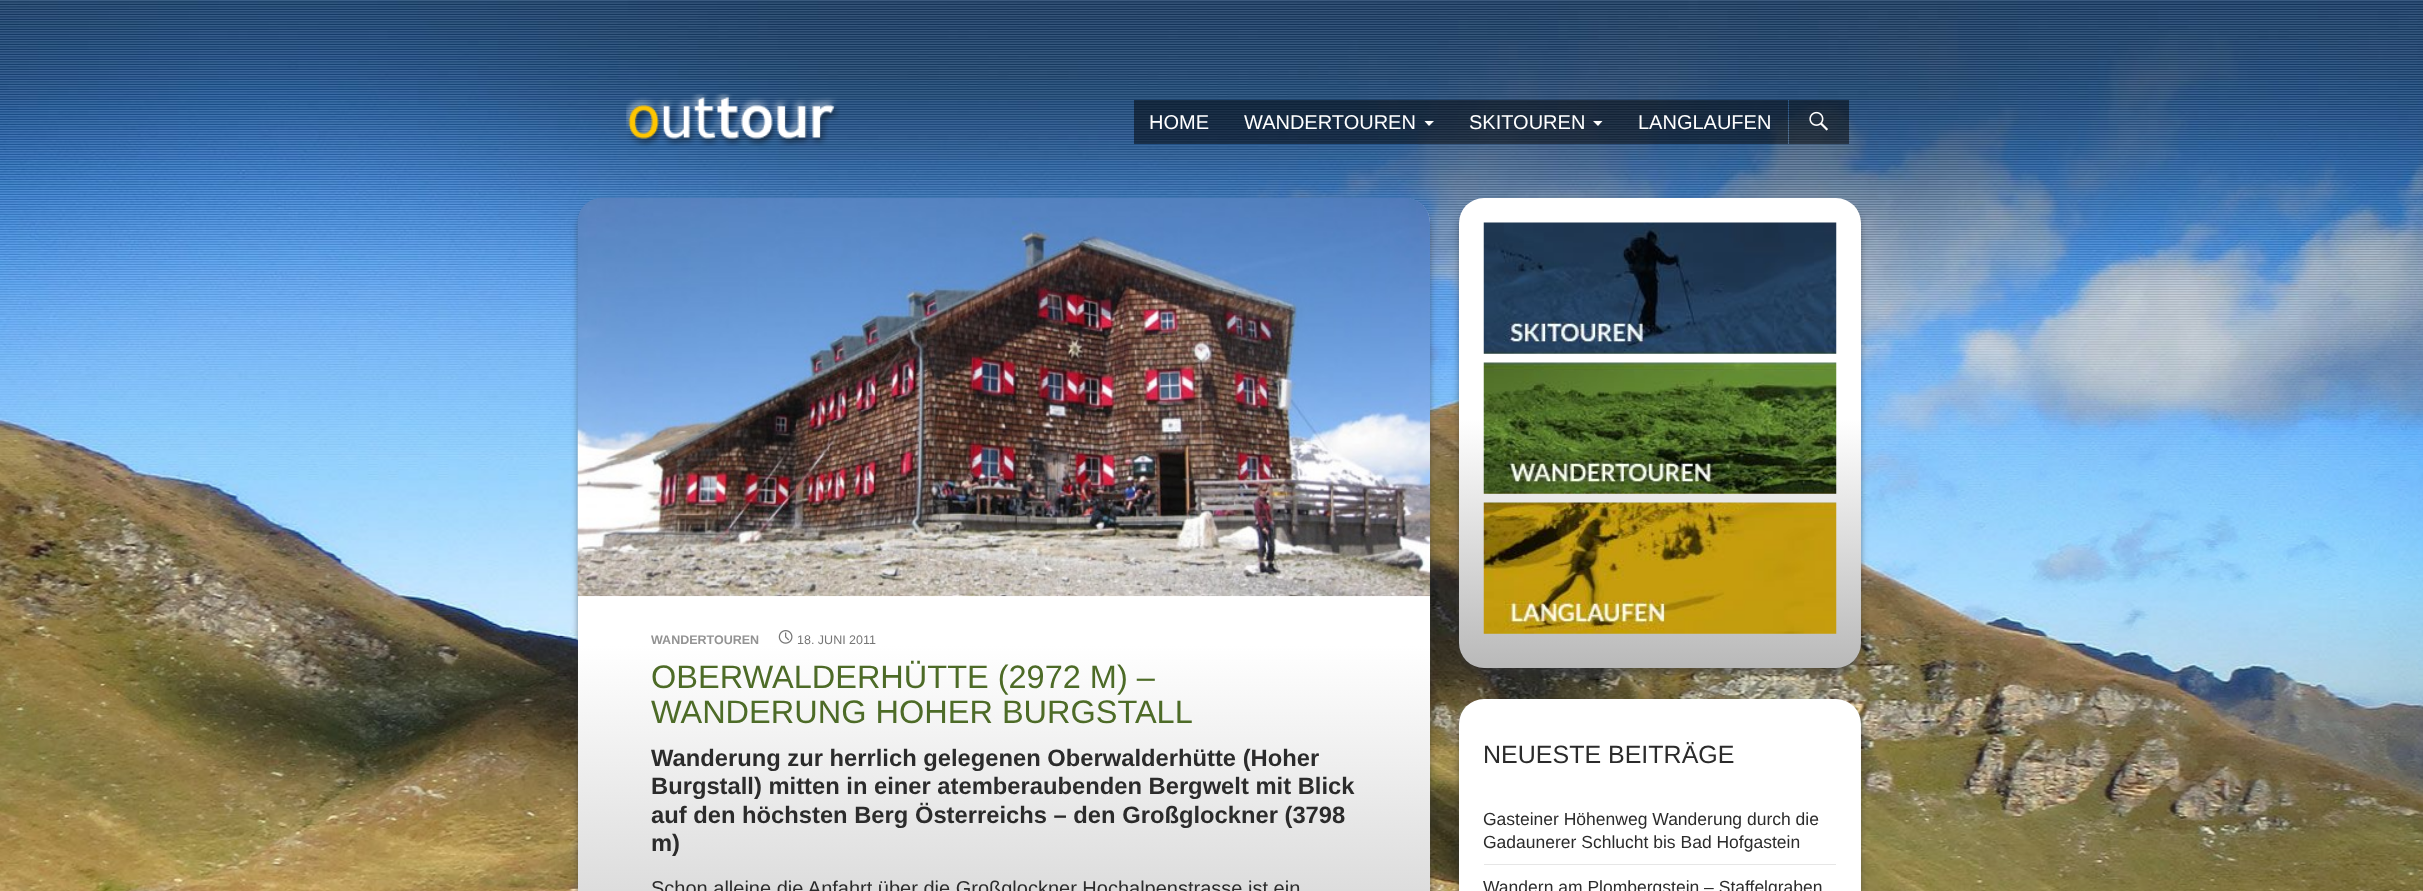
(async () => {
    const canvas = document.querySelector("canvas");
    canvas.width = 2423;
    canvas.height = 891;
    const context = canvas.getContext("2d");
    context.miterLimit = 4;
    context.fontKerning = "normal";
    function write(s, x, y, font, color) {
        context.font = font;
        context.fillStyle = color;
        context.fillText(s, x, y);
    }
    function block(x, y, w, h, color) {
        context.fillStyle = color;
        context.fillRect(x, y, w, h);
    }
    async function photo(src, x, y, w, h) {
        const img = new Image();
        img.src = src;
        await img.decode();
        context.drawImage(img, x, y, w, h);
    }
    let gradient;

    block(0, 0, 2423, 891, "rgb(255, 255, 255)");
    await photo("media/1.png", 0, 0, 2423, 891);
    await photo("media/2.png", 626, 93, 214, 53);
    block(1134, 100, 654, 44, "rgba(0, 0, 0, 0.5)");
    write("HOME", 1149, 129, "20px Liberation Sans", "rgb(255, 255, 255)");
    write("WANDERTOUREN", 1244, 129, "20px Liberation Sans", "rgb(255, 255, 255)");
    context.beginPath();
    context.moveTo(1424.5, 121);
    context.lineTo(1429, 126);
    context.lineTo(1434, 121);
    context.closePath();
    context.fill();
    write("SKITOUREN", 1469, 129, "20px Liberation Sans", "rgb(255, 255, 255)");
    context.beginPath();
    context.moveTo(1593, 121);
    context.lineTo(1598, 126);
    context.lineTo(1602.5, 121);
    context.closePath();
    context.fill();
    write("LANGLAUFEN", 1638, 129, "20px Liberation Sans", "rgb(255, 255, 255)");
    block(1789, 100, 60, 44, "rgba(0, 0, 0, 0.5)");
    await photo("media/3.png", 1809, 111, 19, 20);
    context.fillStyle = "rgba(50, 50, 50, 0.5)";
    context.filter = "blur(3px)";
    context.beginPath();
    context.roundRect(578, 204, 852, 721, 25);
    context.fill();
    context.filter = "none";
    gradient = context.createLinearGradient(1004, 197, 1004, 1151);
    gradient.addColorStop(0, "rgb(255, 255, 255)");
    gradient.addColorStop(0.47, "rgb(255, 255, 255)");
    gradient.addColorStop(1, "rgb(185, 185, 185)");
    context.fillStyle = gradient;
    context.beginPath();
    context.roundRect(578, 198, 852, 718, 25);
    context.fill();
    await photo("media/4.png", 577, 197, 853, 400);
    write("WANDERTOUREN", 651, 644, "bold 12.5px Liberation Sans", "rgb(147, 147, 147)");
    await photo("media/5.png", 778, 630, 15, 14);
    write("18. JUNI 2011", 797, 644, "12.5px Liberation Sans", "rgb(118, 118, 118)");
    write("OBERWALDERHÜTTE (2972 M) –", 651, 688, "32.5px Liberation Sans", "rgb(77, 107, 39)");
    write("WANDERUNG HOHER BURGSTALL", 651, 723, "32.5px Liberation Sans", "rgb(77, 107, 39)");
    write("Wanderung zur herrlich gelegenen Oberwalderhütte (Hoher", 651, 766, "bold 23.75px Liberation Sans", "rgb(43, 43, 43)");
    write("Burgstall) mitten in einer atemberaubenden Bergwelt mit Blick", 651, 794, "bold 23.75px Liberation Sans", "rgb(43, 43, 43)");
    write("auf den höchsten Berg Österreichs – den Großglockner (3798", 651, 823, "bold 23.75px Liberation Sans", "rgb(43, 43, 43)");
    write("m)", 651, 851, "bold 23.75px Liberation Sans", "rgb(43, 43, 43)");
    write("Schon alleine die Anfahrt über die Großglockner Hochalpenstrasse ist ein", 651, 895, "20px Liberation Sans", "rgb(43, 43, 43)");
    context.fillStyle = "rgba(50, 50, 50, 0.5)";
    context.filter = "blur(3px)";
    context.beginPath();
    context.roundRect(1459, 204, 402, 470, 25);
    context.fill();
    context.filter = "none";
    gradient = context.createLinearGradient(1660, 197, 1660, 668);
    gradient.addColorStop(0, "rgb(255, 255, 255)");
    gradient.addColorStop(0.47, "rgb(255, 255, 255)");
    gradient.addColorStop(1, "rgb(185, 185, 185)");
    context.fillStyle = gradient;
    context.beginPath();
    context.roundRect(1459, 198, 402, 470, 25);
    context.fill();
    await photo("media/6.png", 1483, 222, 354, 132);
    await photo("media/7.png", 1483, 362, 354, 132);
    await photo("media/8.png", 1483, 502, 354, 132);
    context.fillStyle = "rgba(50, 50, 50, 0.5)";
    context.filter = "blur(3px)";
    context.beginPath();
    context.roundRect(1459, 705, 402, 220, 25);
    context.fill();
    context.filter = "none";
    gradient = context.createLinearGradient(1660, 699, 1660, 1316);
    gradient.addColorStop(0, "rgb(255, 255, 255)");
    gradient.addColorStop(0.47, "rgb(255, 255, 255)");
    gradient.addColorStop(1, "rgb(185, 185, 185)");
    context.fillStyle = gradient;
    context.beginPath();
    context.roundRect(1459, 699, 402, 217, 25);
    context.fill();
    write("NEUESTE BEITRÄGE", 1483, 763, "25px Liberation Sans", "rgb(43, 43, 43)");
    write("Gasteiner Höhenweg Wanderung durch die", 1483, 825, "17.5px Liberation Sans", "rgb(43, 43, 43)");
    write("Gadaunerer Schlucht bis Bad Hofgastein", 1483, 848, "17.5px Liberation Sans", "rgb(43, 43, 43)");
    block(1484, 864, 352, 1, "rgb(230, 230, 230)");
    write("Wandern am Plombergstein – Staffelgraben", 1483, 893, "17.5px Liberation Sans", "rgb(43, 43, 43)");
})();
